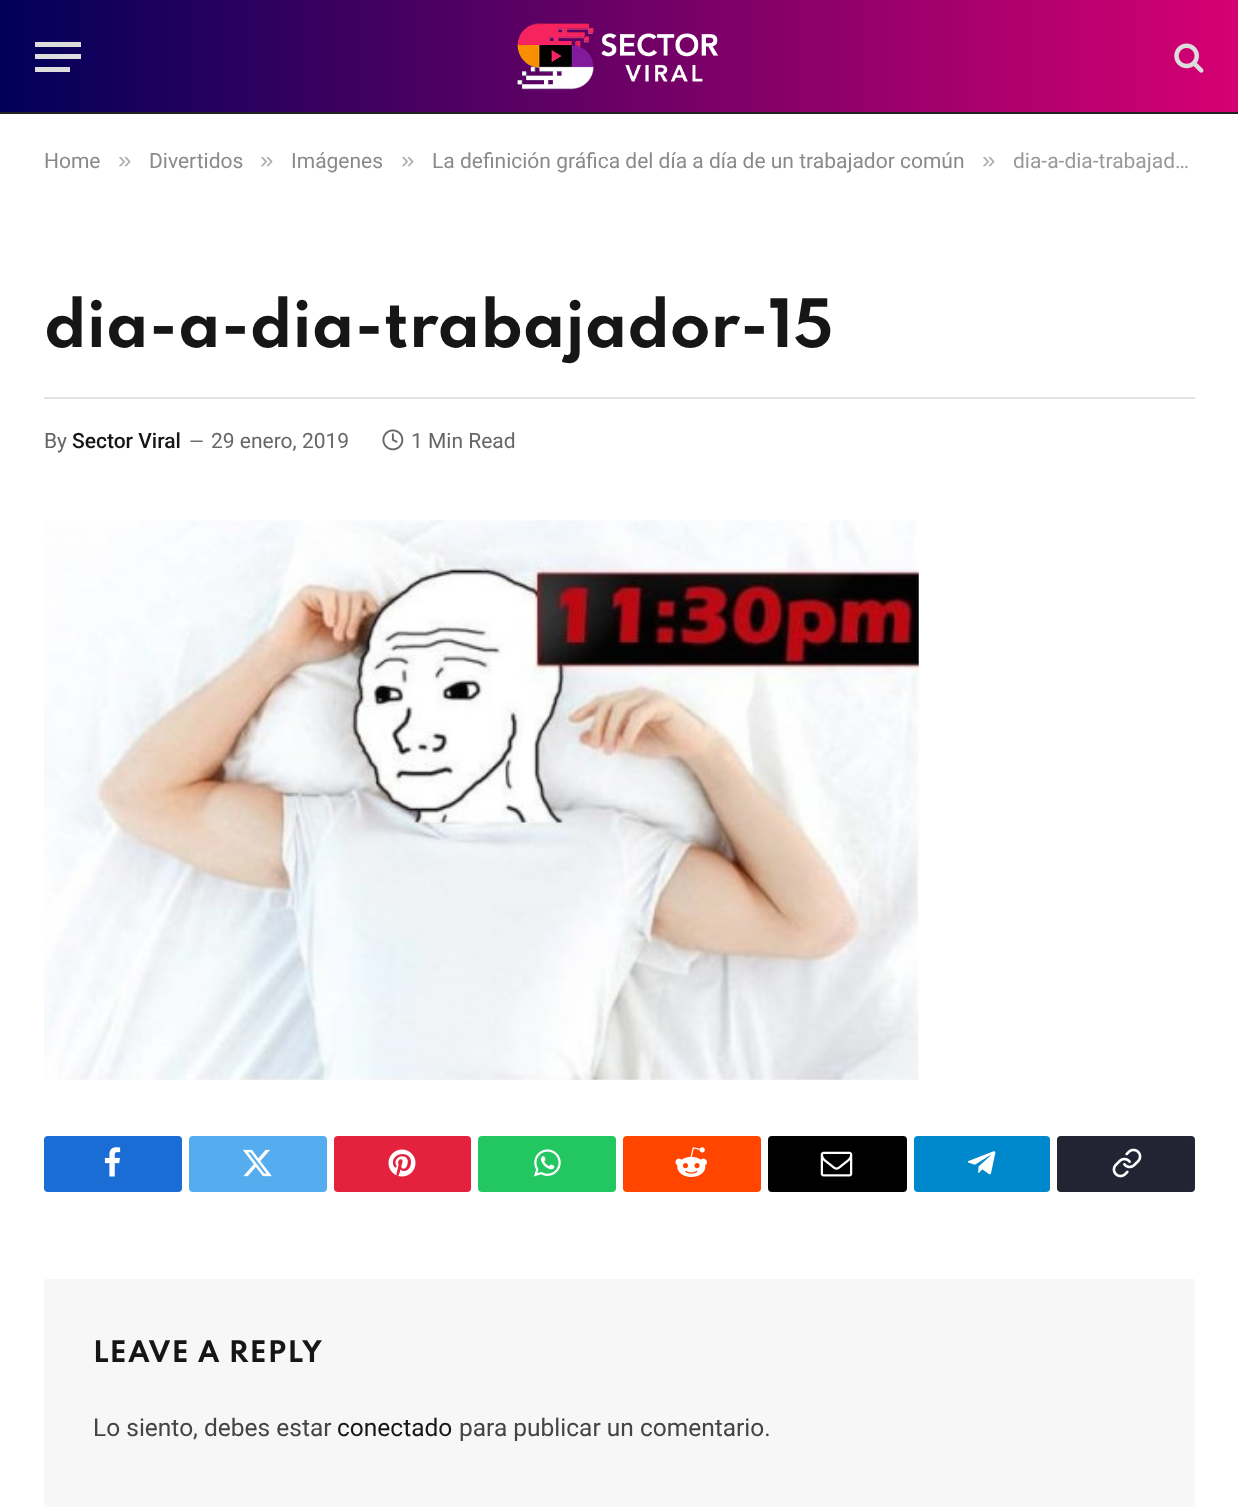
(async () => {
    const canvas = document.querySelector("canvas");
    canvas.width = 1238;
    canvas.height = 1507;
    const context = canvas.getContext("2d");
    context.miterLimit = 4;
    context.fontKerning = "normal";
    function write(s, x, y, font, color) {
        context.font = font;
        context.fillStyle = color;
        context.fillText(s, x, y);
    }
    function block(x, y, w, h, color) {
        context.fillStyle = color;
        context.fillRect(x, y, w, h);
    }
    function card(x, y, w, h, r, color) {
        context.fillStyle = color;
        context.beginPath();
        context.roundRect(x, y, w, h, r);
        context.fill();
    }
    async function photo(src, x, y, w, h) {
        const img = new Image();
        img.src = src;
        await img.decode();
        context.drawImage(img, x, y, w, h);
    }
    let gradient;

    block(0, 0, 1238, 1507, "rgb(255, 255, 255)");
    gradient = context.createLinearGradient(0, 56, 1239, 56);
    gradient.addColorStop(0, "rgb(0, 0, 89)");
    gradient.addColorStop(1, "rgb(214, 0, 114)");
    context.fillStyle = gradient;
    context.fillRect(0, 0, 1238, 112);
    block(0, 112, 1238, 2, "rgb(34, 34, 34)");
    block(35, 67, 35, 5, "rgb(221, 221, 221)");
    block(35, 42, 46, 5, "rgb(221, 221, 221)");
    block(35, 54, 46, 5, "rgb(221, 221, 221)");
    await photo("media/1.png", 517, 22, 202, 68);
    await photo("media/2.png", 1174, 43, 30, 30);
    write("Home", 44, 168, "21px Roboto", "rgb(138, 138, 138)");
    write("»", 118, 168, "24px Liberation Sans", "rgb(173, 173, 173)");
    write("Divertidos", 149, 168, "21px Roboto", "rgb(138, 138, 138)");
    write("»", 260, 168, "24px Liberation Sans", "rgb(173, 173, 173)");
    write("Imágenes", 291, 168, "21px Roboto", "rgb(138, 138, 138)");
    write("»", 401, 168, "24px Liberation Sans", "rgb(173, 173, 173)");
    write("La definición gráfica del día a día de un trabajador común", 432, 168, "21px Roboto", "rgb(138, 138, 138)");
    write("»", 982, 168, "24px Liberation Sans", "rgb(173, 173, 173)");
    write("dia-a-dia-trabajad…", 1013, 168, "21px Roboto", "rgb(153, 153, 153)");
    context.letterSpacing = "-0.3px";
    write("dia-a-dia-trabajador-15", 44, 347, "bold 59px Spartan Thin", "rgb(22, 22, 22)");
    block(44, 397, 1151, 2, "rgb(226, 226, 226)");
    context.letterSpacing = "0px";
    write("By", 44, 448, "21px Roboto", "rgb(102, 102, 102)");
    write("Sector Viral", 72, 448, "500 21px Roboto", "rgb(22, 22, 22)");
    write("—", 189, 448, "19px Roboto", "rgb(102, 102, 102)");
    write("29 enero, 2019", 211, 448, "21px Roboto", "rgb(102, 102, 102)");
    await photo("media/3.png", 382, 429, 22, 22);
    write("1 Min Read", 411, 448, "21px Roboto", "rgb(102, 102, 102)");
    await photo("media/4.png", 44, 520, 875, 560);
    card(44, 1136, 138, 56, 4, "rgb(26, 109, 212)");
    await photo("media/5.png", 104, 1147, 17, 30);
    card(189, 1136, 138, 56, 4, "rgb(85, 172, 239)");
    await photo("media/6.png", 243, 1149, 29, 28);
    card(334, 1136, 137, 56, 4, "rgb(228, 34, 62)");
    await photo("media/7.png", 388, 1149, 28, 28);
    card(478, 1136, 138, 56, 4, "rgb(35, 199, 97)");
    await photo("media/8.png", 533, 1149, 28, 28);
    card(623, 1136, 138, 56, 4, "rgb(255, 69, 0)");
    await photo("media/9.png", 675, 1147, 32, 30);
    card(768, 1136, 139, 56, 4, "rgb(0, 0, 0)");
    await photo("media/10.png", 820, 1151, 33, 26);
    card(914, 1136, 136, 56, 4, "rgb(0, 136, 204)");
    await photo("media/11.png", 967, 1151, 29, 24);
    card(1057, 1136, 138, 56, 4, "rgb(34, 36, 51)");
    await photo("media/12.png", 1112, 1148, 30, 30);
    block(44, 1279, 1151, 228, "rgb(247, 247, 247)");
    context.letterSpacing = "1px";
    write("LEAVE A REPLY", 93, 1362, "bold 26.25px Spartan Thin", "rgb(22, 22, 22)");
    context.letterSpacing = "0px";
    write("Lo siento, debes estar", 93, 1436, "24.5px Roboto", "rgb(68, 68, 68)");
    write("conectado", 337, 1436, "24.5px Roboto", "rgb(22, 22, 22)");
    write("para publicar un comentario.", 459, 1436, "24.5px Roboto", "rgb(68, 68, 68)");
})();
